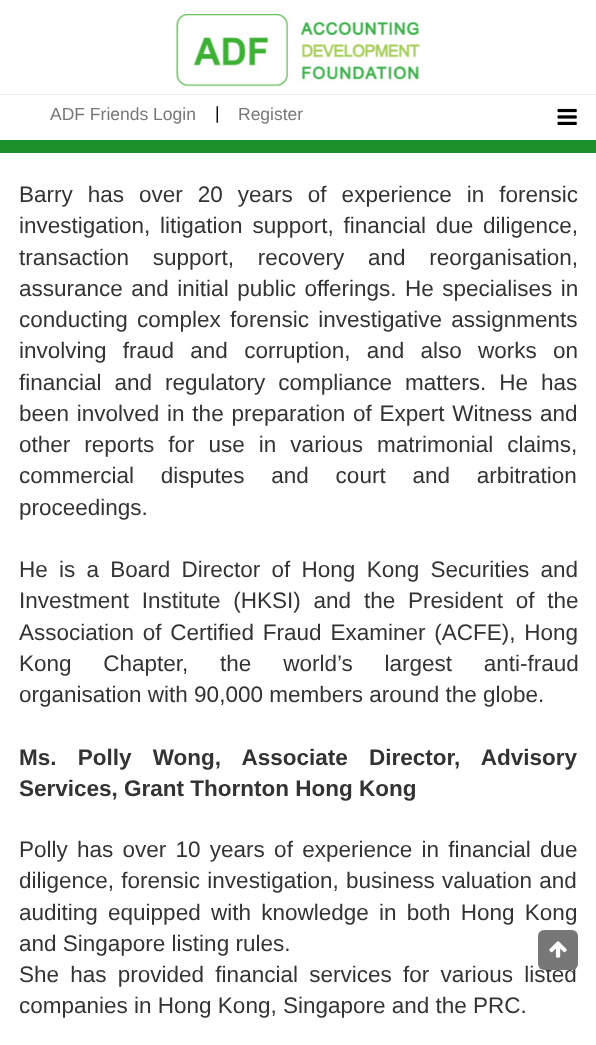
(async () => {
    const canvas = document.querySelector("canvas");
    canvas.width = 596;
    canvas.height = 1045;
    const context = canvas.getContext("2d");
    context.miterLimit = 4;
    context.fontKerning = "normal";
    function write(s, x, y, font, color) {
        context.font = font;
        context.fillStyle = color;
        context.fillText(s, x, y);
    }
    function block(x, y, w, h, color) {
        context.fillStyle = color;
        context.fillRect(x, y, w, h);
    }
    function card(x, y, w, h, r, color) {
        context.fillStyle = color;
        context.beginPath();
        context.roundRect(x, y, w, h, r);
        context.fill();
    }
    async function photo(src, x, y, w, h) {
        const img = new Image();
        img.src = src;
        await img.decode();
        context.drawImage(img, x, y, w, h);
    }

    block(0, 0, 596, 1045, "rgb(255, 255, 255)");
    block(0, 140, 596, 13, "rgb(28, 144, 42)");
    await photo("media/1.png", 176, 14, 244, 73);
    block(0, 94, 596, 1, "rgb(238, 238, 238)");
    write("ADF Friends Login", 50, 120, "17.5px Liberation Sans", "rgb(119, 119, 119)");
    write("|", 215, 119, "17.5px Liberation Sans", "rgb(0, 0, 0)");
    write("Register", 238, 120, "17.5px Liberation Sans", "rgb(119, 119, 119)");
    await photo("media/2.png", 557, 108, 20, 17);
    context.wordSpacing = "8.75px";
    write("Barry has over 20 years of experience in forensic", 19, 202, "22.5px Liberation Sans", "rgb(51, 51, 51)");
    context.wordSpacing = "3.5px";
    write("investigation, litigation support, financial due diligence,", 19, 233, "22.5px Liberation Sans", "rgb(51, 51, 51)");
    context.wordSpacing = "17.5px";
    write("transaction support, recovery and reorganisation,", 19, 265, "22.5px Liberation Sans", "rgb(51, 51, 51)");
    context.wordSpacing = "2.25px";
    write("assurance and initial public offerings. He specialises in", 19, 296, "22.5px Liberation Sans", "rgb(51, 51, 51)");
    context.wordSpacing = "3px";
    write("conducting complex forensic investigative assignments", 19, 327, "22.5px Liberation Sans", "rgb(51, 51, 51)");
    context.wordSpacing = "10px";
    write("involving fraud and corruption, and also works on", 19, 358, "22.5px Liberation Sans", "rgb(51, 51, 51)");
    context.wordSpacing = "6.75px";
    write("financial and regulatory compliance matters. He has", 19, 390, "22.5px Liberation Sans", "rgb(51, 51, 51)");
    context.wordSpacing = "1.5px";
    write("been involved in the preparation of Expert Witness and", 19, 421, "22.5px Liberation Sans", "rgb(51, 51, 51)");
    context.wordSpacing = "7.75px";
    write("other reports for use in various matrimonial claims,", 19, 452, "22.5px Liberation Sans", "rgb(51, 51, 51)");
    context.wordSpacing = "20.5px";
    write("commercial disputes and court and arbitration", 19, 483, "22.5px Liberation Sans", "rgb(51, 51, 51)");
    context.wordSpacing = "0px";
    write("proceedings.", 19, 515, "22.5px Liberation Sans", "rgb(51, 51, 51)");
    context.wordSpacing = "5px";
    write("He is a Board Director of Hong Kong Securities and", 19, 577, "22.5px Liberation Sans", "rgb(51, 51, 51)");
    context.wordSpacing = "6.5px";
    write("Investment Institute (HKSI) and the President of the", 19, 608, "22.5px Liberation Sans", "rgb(51, 51, 51)");
    context.wordSpacing = "2.5px";
    write("Association of Certified Fraud Examiner (ACFE), Hong", 19, 640, "22.5px Liberation Sans", "rgb(51, 51, 51)");
    context.wordSpacing = "25.5px";
    write("Kong Chapter, the world’s largest anti-fraud", 19, 671, "22.5px Liberation Sans", "rgb(51, 51, 51)");
    context.wordSpacing = "0px";
    write("organisation with 90,000 members around the globe.", 19, 702, "22.5px Liberation Sans", "rgb(51, 51, 51)");
    context.wordSpacing = "15px";
    write("Ms. Polly Wong, Associate Director, Advisory", 19, 765, "bold 22.5px Liberation Sans", "rgb(51, 51, 51)");
    context.wordSpacing = "0px";
    write("Services, Grant Thornton Hong Kong", 19, 796, "bold 22.5px Liberation Sans", "rgb(51, 51, 51)");
    context.wordSpacing = "3px";
    write("Polly has over 10 years of experience in financial due", 19, 857, "22.5px Liberation Sans", "rgb(51, 51, 51)");
    context.wordSpacing = "1px";
    write("diligence, forensic investigation, business valuation and", 19, 888, "22.5px Liberation Sans", "rgb(51, 51, 51)");
    context.wordSpacing = "4px";
    write("auditing equipped with knowledge in both Hong Kong", 19, 920, "22.5px Liberation Sans", "rgb(51, 51, 51)");
    context.wordSpacing = "0px";
    write("and Singapore listing rules.", 19, 951, "22.5px Liberation Sans", "rgb(51, 51, 51)");
    context.wordSpacing = "5px";
    write("She has provided financial services for various listed", 19, 982, "22.5px Liberation Sans", "rgb(51, 51, 51)");
    context.wordSpacing = "0px";
    write("companies in Hong Kong, Singapore and the PRC.", 19, 1013, "22.5px Liberation Sans", "rgb(51, 51, 51)");
    card(538, 930, 40, 40, 6, "rgb(119, 119, 119)");
    await photo("media/3.png", 549, 941, 18, 17);
})();
